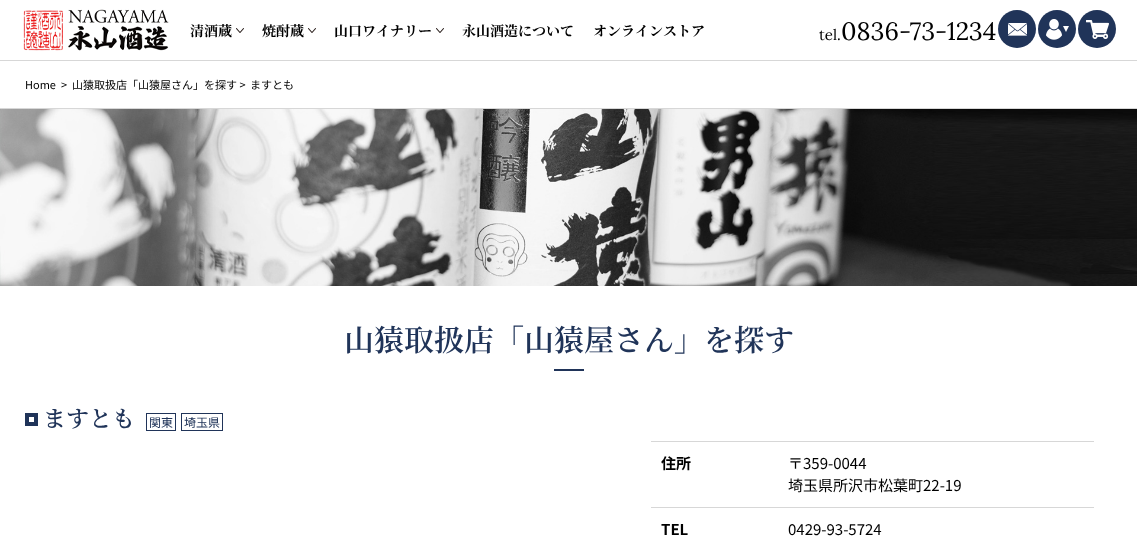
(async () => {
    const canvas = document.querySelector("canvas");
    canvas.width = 1137;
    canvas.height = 546;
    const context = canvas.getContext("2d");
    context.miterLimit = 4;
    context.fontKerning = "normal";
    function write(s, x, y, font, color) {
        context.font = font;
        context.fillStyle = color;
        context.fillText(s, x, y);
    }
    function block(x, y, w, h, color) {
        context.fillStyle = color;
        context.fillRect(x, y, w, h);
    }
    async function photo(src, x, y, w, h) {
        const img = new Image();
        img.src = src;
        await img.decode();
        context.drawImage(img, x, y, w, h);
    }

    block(0, 0, 1137, 546, "rgb(255, 255, 255)");
    await photo("media/1.png", 23, 9, 146, 42);
    write("清酒蔵", 190, 36, "bold 14px Noto Serif JP", "rgb(0, 0, 0)");
    await photo("media/2.png", 236, 28, 8, 5);
    write("焼酎蔵", 262, 36, "bold 14px Noto Serif JP", "rgb(0, 0, 0)");
    await photo("media/2.png", 308, 28, 8, 5);
    write("山口ワイナリー", 334, 36, "bold 14px Noto Serif JP", "rgb(0, 0, 0)");
    await photo("media/2.png", 436, 28, 8, 5);
    write("永山酒造について", 462, 36, "bold 14px Noto Serif JP", "rgb(0, 0, 0)");
    write("オンラインストア", 593, 36, "bold 14px Noto Serif JP", "rgb(0, 0, 0)");
    write("tel.", 819, 40, "15px Lora", "rgb(0, 0, 0)");
    write("0836-73-1234", 841, 40, "25px Lora", "rgb(0, 0, 0)");
    context.fillStyle = "rgb(32, 52, 89)";
    context.beginPath();
    context.arc(1017, 29, 19, 0, Math.PI * 2);
    context.fill();
    await photo("media/3.png", 1008, 23, 19, 13);
    context.beginPath();
    context.arc(1057, 29, 19, 0, Math.PI * 2);
    context.fill();
    await photo("media/4.png", 1046, 19, 23, 21);
    context.beginPath();
    context.arc(1097, 29, 19, 0, Math.PI * 2);
    context.fill();
    await photo("media/5.png", 1086, 20, 23, 19);
    block(0, 60, 1137, 1, "rgb(215, 215, 215)");
    block(0, 108, 1137, 1, "rgb(215, 215, 215)");
    write("Home", 25, 89, "11px Noto Sans JP", "rgb(0, 0, 0)");
    write(">", 61, 89, "11px Noto Sans JP", "rgb(0, 0, 0)");
    write("山猿取扱店「山猿屋さん」を探す >", 72, 89, "11px Noto Sans JP", "rgb(0, 0, 0)");
    write("ますとも", 250, 89, "11px Noto Sans JP", "rgb(0, 0, 0)");
    await photo("media/6.png", 0, 109, 1137, 177);
    write("山猿取扱店「山猿屋さん」を探す", 344, 351, "600 30px Noto Serif JP", "rgb(32, 52, 89)");
    block(554, 369, 30, 2, "rgb(32, 52, 89)");
    context.strokeStyle = "rgb(32, 52, 89)";
    context.lineWidth = 4;
    context.strokeRect(27, 415, 9, 9);
    write("ますとも", 43, 427, "600 23px Noto Serif JP", "rgb(32, 52, 89)");
    context.lineWidth = 1;
    context.strokeRect(146.5, 413.5, 29, 17);
    write("関東", 149, 427, "12px Noto Sans JP", "rgb(32, 52, 89)");
    context.strokeRect(181.5, 413.5, 41, 17);
    write("埼玉県", 184, 427, "12px Noto Sans JP", "rgb(32, 52, 89)");
    block(651, 441, 443, 1, "rgb(215, 215, 215)");
    block(651, 507, 443, 1, "rgb(215, 215, 215)");
    write("住所", 661, 469, "bold 15px Noto Sans JP", "rgb(0, 0, 0)");
    write("〒359-0044", 788, 469, "15px Noto Sans JP", "rgb(0, 0, 0)");
    write("埼玉県所沢市松葉町22-19", 788, 491, "15px Noto Sans JP", "rgb(0, 0, 0)");
    write("TEL", 661, 535, "bold 15px Noto Sans JP", "rgb(0, 0, 0)");
    write("0429-93-5724", 788, 535, "15px Noto Sans JP", "rgb(0, 0, 0)");
})();
